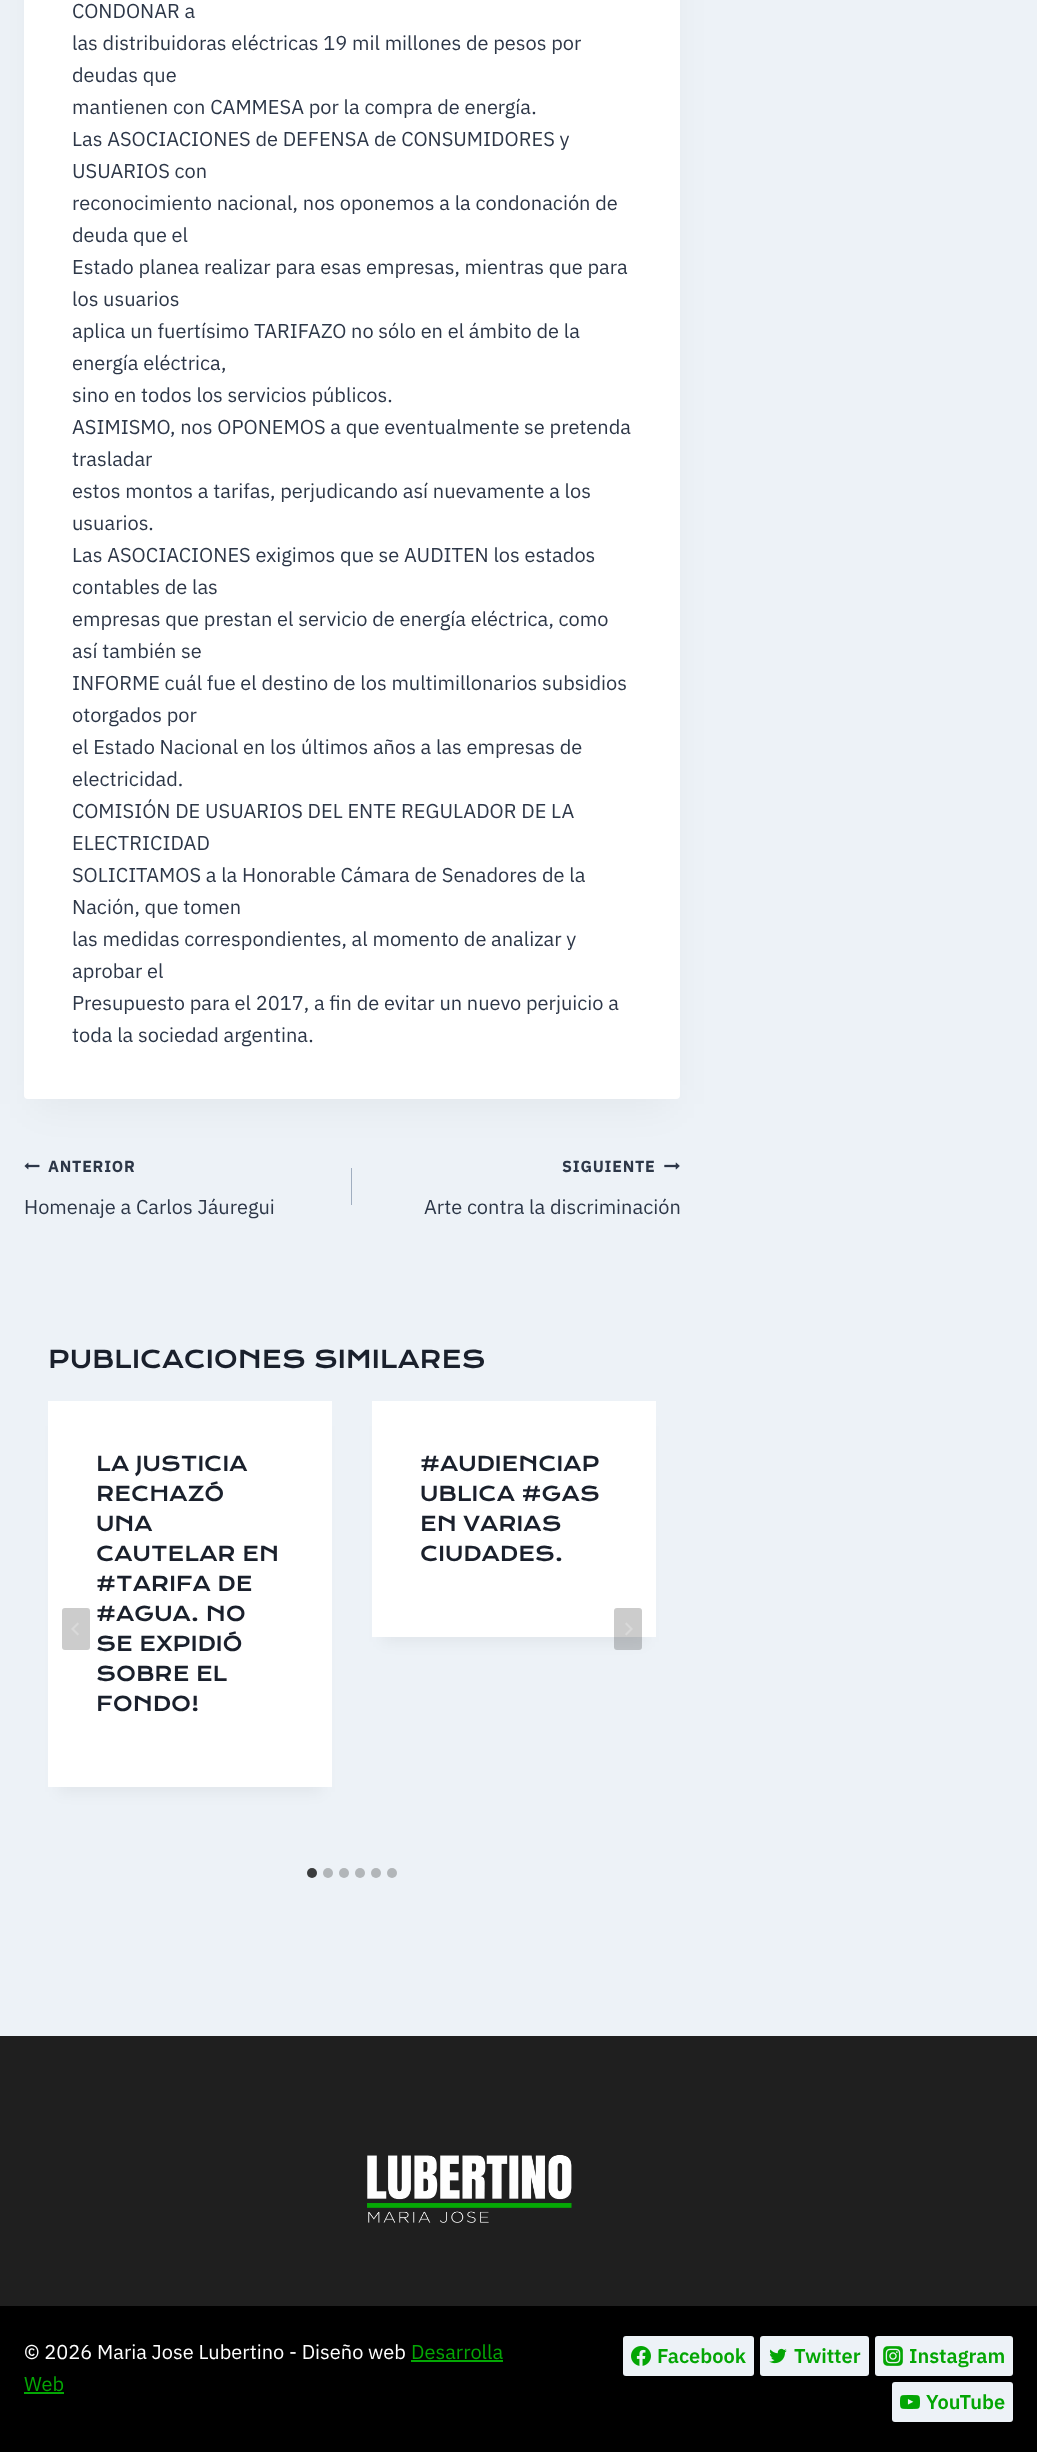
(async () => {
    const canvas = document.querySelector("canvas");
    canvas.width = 1037;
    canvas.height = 2452;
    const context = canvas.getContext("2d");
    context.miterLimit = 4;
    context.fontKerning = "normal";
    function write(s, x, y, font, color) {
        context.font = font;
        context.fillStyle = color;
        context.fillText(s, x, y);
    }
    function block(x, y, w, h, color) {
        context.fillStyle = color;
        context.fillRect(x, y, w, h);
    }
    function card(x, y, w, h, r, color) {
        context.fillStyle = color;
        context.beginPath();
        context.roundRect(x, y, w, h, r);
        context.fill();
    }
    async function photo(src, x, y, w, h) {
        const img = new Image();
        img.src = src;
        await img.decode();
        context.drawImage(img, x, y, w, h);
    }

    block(0, 0, 1037, 2452, "rgb(237, 242, 247)");
    context.fillStyle = "rgba(0, 0, 0, 0.05)";
    context.filter = "blur(20px)";
    context.beginPath();
    context.rect(34, -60, 636, 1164);
    context.fill();
    context.filter = "none";
    card(24, -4, 656, 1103, 4, "rgb(255, 255, 255)");
    write("CONDONAR a", 72, 18, "20px IBM Plex Sans", "rgb(45, 55, 72)");
    write("las distribuidoras eléctricas 19 mil millones de pesos por", 72, 50, "20px IBM Plex Sans", "rgb(45, 55, 72)");
    write("deudas que", 72, 82, "20px IBM Plex Sans", "rgb(45, 55, 72)");
    write("mantienen con CAMMESA por la compra de energía.", 72, 114, "20px IBM Plex Sans", "rgb(45, 55, 72)");
    write("Las ASOCIACIONES de DEFENSA de CONSUMIDORES y", 72, 146, "20px IBM Plex Sans", "rgb(45, 55, 72)");
    write("USUARIOS con", 72, 178, "20px IBM Plex Sans", "rgb(45, 55, 72)");
    write("reconocimiento nacional, nos oponemos a la condonación de", 72, 210, "20px IBM Plex Sans", "rgb(45, 55, 72)");
    write("deuda que el", 72, 242, "20px IBM Plex Sans", "rgb(45, 55, 72)");
    write("Estado planea realizar para esas empresas, mientras que para", 72, 274, "20px IBM Plex Sans", "rgb(45, 55, 72)");
    write("los usuarios", 72, 306, "20px IBM Plex Sans", "rgb(45, 55, 72)");
    write("aplica un fuertísimo TARIFAZO no sólo en el ámbito de la", 72, 338, "20px IBM Plex Sans", "rgb(45, 55, 72)");
    write("energía eléctrica,", 72, 370, "20px IBM Plex Sans", "rgb(45, 55, 72)");
    write("sino en todos los servicios públicos.", 72, 402, "20px IBM Plex Sans", "rgb(45, 55, 72)");
    write("ASIMISMO, nos OPONEMOS a que eventualmente se pretenda", 72, 434, "20px IBM Plex Sans", "rgb(45, 55, 72)");
    write("trasladar", 72, 466, "20px IBM Plex Sans", "rgb(45, 55, 72)");
    write("estos montos a tarifas, perjudicando así nuevamente a los", 72, 498, "20px IBM Plex Sans", "rgb(45, 55, 72)");
    write("usuarios.", 72, 530, "20px IBM Plex Sans", "rgb(45, 55, 72)");
    write("Las ASOCIACIONES exigimos que se AUDITEN los estados", 72, 562, "20px IBM Plex Sans", "rgb(45, 55, 72)");
    write("contables de las", 72, 594, "20px IBM Plex Sans", "rgb(45, 55, 72)");
    write("empresas que prestan el servicio de energía eléctrica, como", 72, 626, "20px IBM Plex Sans", "rgb(45, 55, 72)");
    write("así también se", 72, 658, "20px IBM Plex Sans", "rgb(45, 55, 72)");
    write("INFORME cuál fue el destino de los multimillonarios subsidios", 72, 690, "20px IBM Plex Sans", "rgb(45, 55, 72)");
    write("otorgados por", 72, 722, "20px IBM Plex Sans", "rgb(45, 55, 72)");
    write("el Estado Nacional en los últimos años a las empresas de", 72, 754, "20px IBM Plex Sans", "rgb(45, 55, 72)");
    write("electricidad.", 72, 786, "20px IBM Plex Sans", "rgb(45, 55, 72)");
    write("COMISIÓN DE USUARIOS DEL ENTE REGULADOR DE LA", 72, 818, "20px IBM Plex Sans", "rgb(45, 55, 72)");
    write("ELECTRICIDAD", 72, 850, "20px IBM Plex Sans", "rgb(45, 55, 72)");
    write("SOLICITAMOS a la Honorable Cámara de Senadores de la", 72, 882, "20px IBM Plex Sans", "rgb(45, 55, 72)");
    write("Nación, que tomen", 72, 914, "20px IBM Plex Sans", "rgb(45, 55, 72)");
    write("las medidas correspondientes, al momento de analizar y", 72, 946, "20px IBM Plex Sans", "rgb(45, 55, 72)");
    write("aprobar el", 72, 978, "20px IBM Plex Sans", "rgb(45, 55, 72)");
    write("Presupuesto para el 2017, a fin de evitar un nuevo perjuicio a", 72, 1010, "20px IBM Plex Sans", "rgb(45, 55, 72)");
    write("toda la sociedad argentina.", 72, 1042, "20px IBM Plex Sans", "rgb(45, 55, 72)");
    await photo("media/1.png", 24, 1162, 16, 8);
    context.letterSpacing = "0.75px";
    write("ANTERIOR", 48, 1172, "bold 16px IBM Plex Sans", "rgb(45, 55, 72)");
    context.letterSpacing = "0px";
    write("Homenaje a Carlos Jáuregui", 24, 1214, "20px IBM Plex Sans", "rgb(45, 55, 72)");
    block(351, 1168, 1, 37, "rgb(160, 174, 192)");
    context.letterSpacing = "0.75px";
    write("SIGUIENTE", 562, 1172, "bold 16px IBM Plex Sans", "rgb(45, 55, 72)");
    await photo("media/2.png", 664, 1162, 16, 8);
    context.letterSpacing = "0px";
    write("Arte contra la discriminación", 424, 1214, "20px IBM Plex Sans", "rgb(45, 55, 72)");
    write("PUBLICACIONES SIMILARES", 48, 1368, "24px Krona One", "rgb(26, 32, 44)");
    context.fillStyle = "rgba(0, 0, 0, 0.05)";
    context.filter = "blur(7.5px)";
    context.beginPath();
    context.rect(58, 1426, 264, 366);
    context.fill();
    context.filter = "none";
    block(48, 1401, 284, 386, "rgb(255, 255, 255)");
    write("LA JUSTICIA", 96, 1471, "20px Krona One", "rgb(26, 32, 44)");
    write("RECHAZÓ", 96, 1501, "20px Krona One", "rgb(26, 32, 44)");
    write("UNA", 96, 1531, "20px Krona One", "rgb(26, 32, 44)");
    write("CAUTELAR EN", 96, 1561, "20px Krona One", "rgb(26, 32, 44)");
    write("#TARIFA DE", 96, 1591, "20px Krona One", "rgb(26, 32, 44)");
    write("#AGUA. NO", 96, 1621, "20px Krona One", "rgb(26, 32, 44)");
    write("SE EXPIDIÓ", 96, 1651, "20px Krona One", "rgb(26, 32, 44)");
    write("SOBRE EL", 96, 1681, "20px Krona One", "rgb(26, 32, 44)");
    write("FONDO!", 96, 1711, "20px Krona One", "rgb(26, 32, 44)");
    context.fillStyle = "rgba(0, 0, 0, 0.05)";
    context.filter = "blur(7.5px)";
    context.beginPath();
    context.rect(382, 1426, 264, 216);
    context.fill();
    context.filter = "none";
    block(372, 1401, 284, 236, "rgb(255, 255, 255)");
    write("#AUDIENCIAP", 420, 1471, "20px Krona One", "rgb(26, 32, 44)");
    write("UBLICA #GAS", 420, 1501, "20px Krona One", "rgb(26, 32, 44)");
    write("EN VARIAS", 420, 1531, "20px Krona One", "rgb(26, 32, 44)");
    write("CIUDADES.", 420, 1561, "20px Krona One", "rgb(26, 32, 44)");
    card(62, 1608, 28, 42, 3, "rgb(204, 204, 204)");
    await photo("media/3.png", 71, 1622, 8, 14);
    card(614, 1608, 28, 42, 3, "rgba(0, 0, 0, 0.2)");
    await photo("media/4.png", 625, 1622, 8, 14);
    context.fillStyle = "rgb(59, 61, 62)";
    context.beginPath();
    context.arc(312, 1873, 5, 0, Math.PI * 2);
    context.fill();
    context.fillStyle = "rgb(178, 182, 185)";
    context.beginPath();
    context.arc(328, 1873, 5, 0, Math.PI * 2);
    context.fill();
    context.beginPath();
    context.arc(344, 1873, 5, 0, Math.PI * 2);
    context.fill();
    context.beginPath();
    context.arc(360, 1873, 5, 0, Math.PI * 2);
    context.fill();
    context.beginPath();
    context.arc(376, 1873, 5, 0, Math.PI * 2);
    context.fill();
    context.beginPath();
    context.arc(392, 1873, 5, 0, Math.PI * 2);
    context.fill();
    block(0, 2036, 1037, 270, "rgb(31, 31, 31)");
    await photo("media/5.png", 367, 2154, 205, 69);
    block(0, 2306, 1037, 146, "rgb(0, 0, 0)");
    write("© 2026 Maria Jose Lubertino - Diseño web", 24, 2359, "20px IBM Plex Sans", "rgb(255, 255, 255)");
    write("Desarrolla", 411, 2359, "20px IBM Plex Sans", "rgb(4, 166, 4)");
    block(411, 2360, 92, 2, "rgb(4, 166, 4)");
    write("Web", 24, 2391, "20px IBM Plex Sans", "rgb(4, 166, 4)");
    block(24, 2392, 40, 2, "rgb(4, 166, 4)");
    card(623, 2336, 131, 40, 3, "rgb(237, 242, 247)");
    await photo("media/6.png", 631, 2346, 20, 20);
    write("Facebook", 657, 2363, "600 20px IBM Plex Sans", "rgb(4, 166, 4)");
    card(760, 2336, 109, 40, 3, "rgb(237, 242, 247)");
    await photo("media/7.png", 769, 2348, 18, 16);
    write("Twitter", 794, 2363, "600 20px IBM Plex Sans", "rgb(4, 166, 4)");
    card(875, 2336, 138, 40, 3, "rgb(237, 242, 247)");
    await photo("media/8.png", 883, 2346, 20, 20);
    write("Instagram", 909, 2363, "600 20px IBM Plex Sans", "rgb(4, 166, 4)");
    card(892, 2382, 121, 40, 3, "rgb(237, 242, 247)");
    await photo("media/9.png", 900, 2395, 20, 14);
    write("YouTube", 926, 2409, "600 20px IBM Plex Sans", "rgb(4, 166, 4)");
})();
